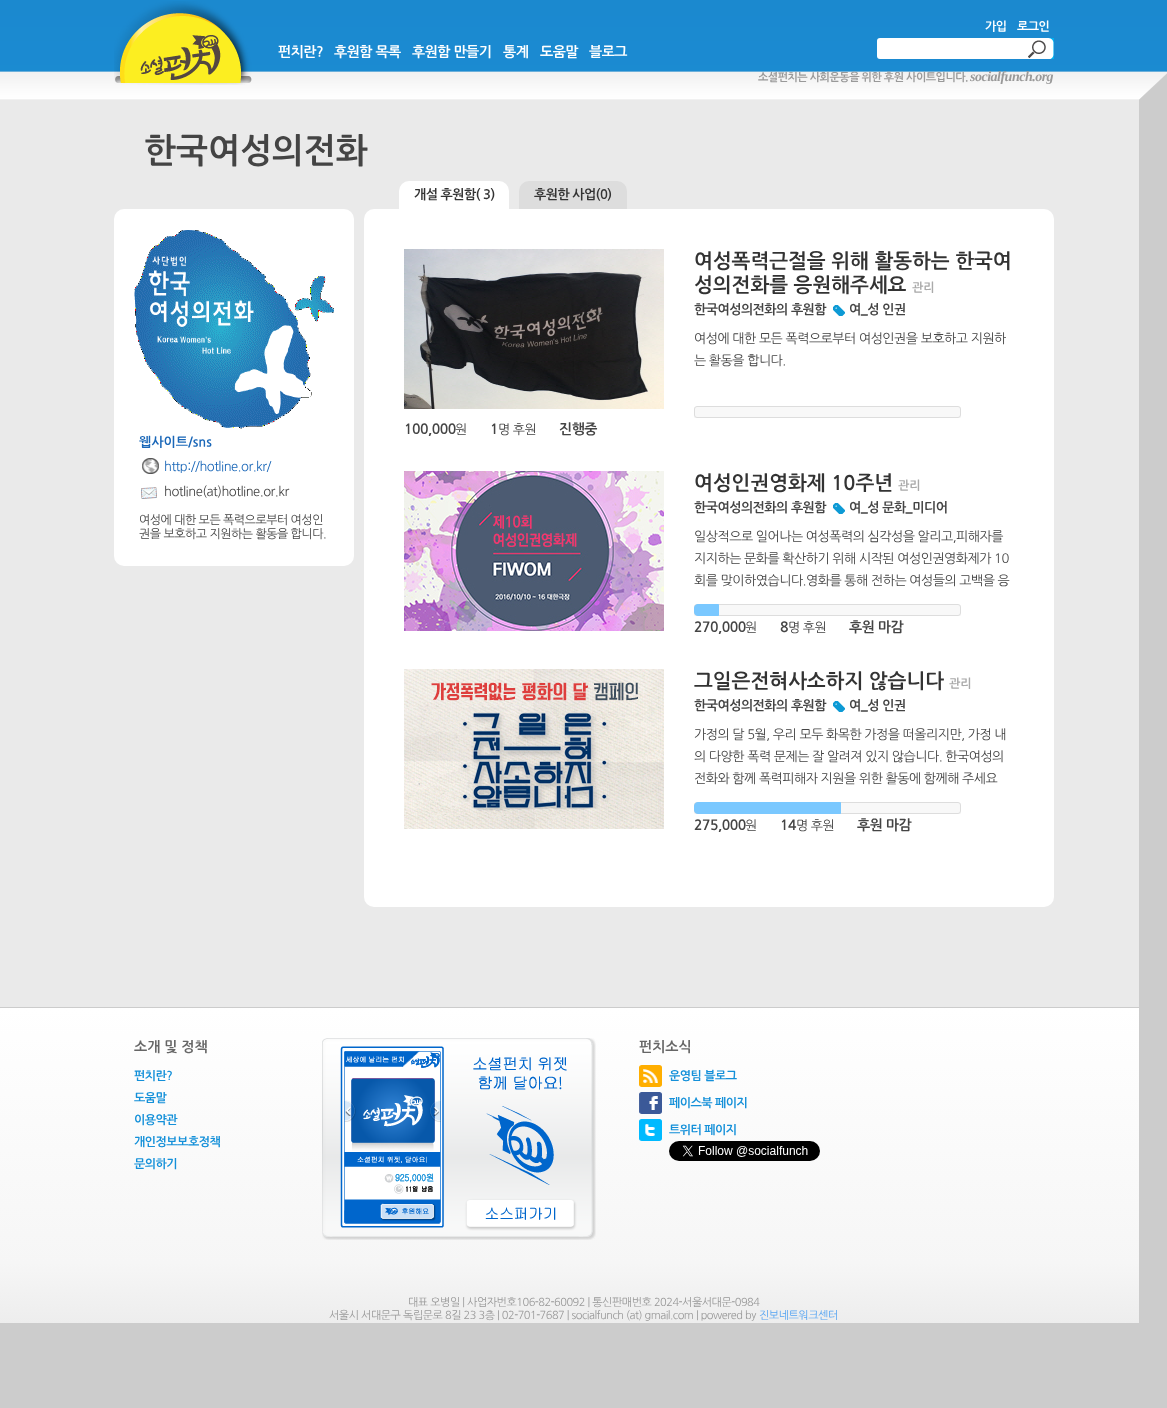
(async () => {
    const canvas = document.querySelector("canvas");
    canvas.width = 1167;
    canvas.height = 1408;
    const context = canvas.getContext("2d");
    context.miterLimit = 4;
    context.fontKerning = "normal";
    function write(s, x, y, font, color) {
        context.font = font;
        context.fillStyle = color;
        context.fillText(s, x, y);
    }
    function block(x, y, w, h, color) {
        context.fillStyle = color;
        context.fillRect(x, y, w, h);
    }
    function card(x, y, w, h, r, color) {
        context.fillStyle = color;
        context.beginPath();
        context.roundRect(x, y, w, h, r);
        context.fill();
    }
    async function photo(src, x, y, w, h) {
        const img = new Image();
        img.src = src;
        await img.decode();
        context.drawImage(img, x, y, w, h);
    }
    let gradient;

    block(0, 0, 1167, 1408, "rgb(204, 204, 204)");
    await photo("media/1.png", 1139, 0, 28, 100);
    block(0, 100, 1139, 907, "rgb(234, 234, 234)");
    await photo("media/2.png", 0, 0, 1139, 100);
    await photo("media/3.png", 114, 1, 138, 84);
    context.letterSpacing = "-0.5px";
    write("펀치란?", 278, 56, "bold 14px 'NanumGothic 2'", "rgb(255, 255, 255)");
    write("후원함 목록", 334, 56, "bold 14px 'NanumGothic 2'", "rgb(255, 255, 255)");
    write("후원함 만들기", 412, 56, "bold 14px 'NanumGothic 2'", "rgb(255, 255, 255)");
    write("통계", 503, 56, "bold 14px 'NanumGothic 2'", "rgb(255, 255, 255)");
    write("도움말", 540, 56, "bold 14px 'NanumGothic 2'", "rgb(255, 255, 255)");
    write("블로그", 589, 56, "bold 14px 'NanumGothic 2'", "rgb(255, 255, 255)");
    write("가입", 985, 30, "bold 12px 'NanumGothic 2'", "rgb(255, 255, 255)");
    write("로그인", 1017, 30, "bold 12px 'NanumGothic 2'", "rgb(255, 255, 255)");
    context.beginPath();
    context.roundRect(877, 38, 150, 21, [3, 0, 0, 3]);
    context.fill();
    await photo("media/4.png", 1027, 38, 27, 21);
    write("소셜펀치는 사회운동을 위한 후원 사이트입니다.", 758, 81, "bold 11px NanumGothic", "rgb(153, 153, 153)");
    write("socialfunch.org", 970, 81, "italic bold 14px Liberation Serif", "rgb(153, 153, 153)");
    context.letterSpacing = "0px";
    write("한국여성의전화", 144, 161, "bold 34px 'NanumGothic 2'", "rgb(68, 68, 68)");
    card(114, 209, 240, 357, 10, "rgb(255, 255, 255)");
    await photo("media/5.png", 134, 230, 200, 199);
    write("웹사이트/sns", 139, 446, "bold 13px 'NanumGothic 2'", "rgb(26, 103, 184)");
    await photo("media/6.png", 142, 458, 17, 16);
    context.letterSpacing = "-0.5px";
    write("http://hotline.or.kr/", 164, 471, "13px NanumGothic", "rgb(26, 103, 184)");
    await photo("media/7.png", 141, 487, 16, 12);
    write("hotline(at)hotline.or.kr", 164, 496, "13px NanumGothic", "rgb(68, 68, 68)");
    write("여성에 대한 모든 폭력으로부터 여성인", 139, 524, "12px NanumGothic", "rgb(68, 68, 68)");
    write("권을 보호하고 지원하는 활동을 합니다.", 139, 538, "12px NanumGothic", "rgb(68, 68, 68)");
    context.fillStyle = "rgb(255, 255, 255)";
    context.beginPath();
    context.roundRect(399, 181, 110, 28, [10, 10, 0, 0]);
    context.fill();
    write("개설 후원함( 3)", 414, 199, "bold 13px NanumGothic", "rgb(51, 51, 51)");
    context.fillStyle = "rgb(221, 221, 221)";
    context.beginPath();
    context.roundRect(519, 181, 108, 28, [10, 10, 0, 0]);
    context.fill();
    write("후원한 사업(0)", 534, 199, "bold 13px NanumGothic", "rgb(51, 51, 51)");
    card(364, 209, 690, 698, 10, "rgb(255, 255, 255)");
    await photo("media/8.png", 404, 249, 260, 160);
    context.letterSpacing = "0px";
    write("여성폭력근절을 위해 활동하는 한국여", 694, 267, "bold 20px 'NanumGothic 2'", "rgb(51, 51, 51)");
    write("성의전화를 응원해주세요", 694, 291, "bold 20px 'NanumGothic 2'", "rgb(51, 51, 51)");
    write("관리", 912, 291, "bold 12px 'NanumGothic 2'", "rgb(170, 170, 170)");
    context.letterSpacing = "-0.5px";
    write("한국여성의전화의 후원함", 694, 314, "bold 13px NanumGothic", "rgb(68, 68, 68)");
    await photo("media/9.png", 833, 305, 12, 11);
    write("여_성 인권", 849, 314, "bold 13px NanumGothic", "rgb(68, 68, 68)");
    write("여성에 대한 모든 폭력으로부터 여성인권을 보호하고 지원하", 694, 343, "13px NanumGothic", "rgb(68, 68, 68)");
    write("는 활동을 합니다.", 694, 365, "13px NanumGothic", "rgb(68, 68, 68)");
    block(694, 407, 267, 11, "rgb(248, 248, 248)");
    context.beginPath();
    context.roundRect(694.5, 406.5, 266, 11, 2.5);
    context.strokeStyle = "rgb(221, 221, 221)";
    context.stroke();
    write("100,000", 404, 434, "bold 14px NanumGothic", "rgb(68, 68, 68)");
    write("원", 455, 434, "13px NanumGothic", "rgb(68, 68, 68)");
    write("1", 490, 434, "bold 14px NanumGothic", "rgb(68, 68, 68)");
    write("명 후원", 498, 434, "13px NanumGothic", "rgb(68, 68, 68)");
    write("진행중", 559, 434, "bold 14px NanumGothic", "rgb(68, 68, 68)");
    await photo("media/10.png", 404, 471, 260, 160);
    context.letterSpacing = "0px";
    write("여성인권영화제 10주년", 694, 489, "bold 20px 'NanumGothic 2'", "rgb(51, 51, 51)");
    write("관리", 898, 489, "bold 12px 'NanumGothic 2'", "rgb(170, 170, 170)");
    context.letterSpacing = "-0.5px";
    write("한국여성의전화의 후원함", 694, 512, "bold 13px NanumGothic", "rgb(68, 68, 68)");
    await photo("media/9.png", 833, 503, 12, 11);
    write("여_성 문화_미디어", 849, 512, "bold 13px NanumGothic", "rgb(68, 68, 68)");
    write("일상적으로 일어나는 여성폭력의 심각성을 알리고,피해자를", 694, 541, "13px NanumGothic", "rgb(68, 68, 68)");
    write("지지하는 문화를 확산하기 위해 시작된 여성인권영화제가 10", 694, 563, "13px NanumGothic", "rgb(68, 68, 68)");
    write("회를 맞이하였습니다.영화를 통해 전하는 여성들의 고백을 응", 694, 585, "13px NanumGothic", "rgb(68, 68, 68)");
    block(694, 605, 267, 11, "rgb(248, 248, 248)");
    context.beginPath();
    context.roundRect(694.5, 604.5, 266, 11, 2.5);
    context.stroke();
    context.fillStyle = "rgb(122, 200, 255)";
    context.beginPath();
    context.roundRect(694.5, 604.5, 24, 11, [3.5, 0, 0, 3.5]);
    context.fill();
    context.strokeStyle = "rgb(122, 200, 255)";
    context.stroke();
    write("270,000", 694, 632, "bold 14px NanumGothic", "rgb(68, 68, 68)");
    write("원", 745, 632, "13px NanumGothic", "rgb(68, 68, 68)");
    write("8", 780, 632, "bold 14px NanumGothic", "rgb(68, 68, 68)");
    write("명 후원", 788, 632, "13px NanumGothic", "rgb(68, 68, 68)");
    write("후원 마감", 849, 632, "bold 14px NanumGothic", "rgb(68, 68, 68)");
    await photo("media/11.png", 404, 669, 260, 160);
    context.letterSpacing = "0px";
    write("그일은전혀사소하지 않습니다", 694, 687, "bold 20px 'NanumGothic 2'", "rgb(51, 51, 51)");
    write("관리", 949, 687, "bold 12px 'NanumGothic 2'", "rgb(170, 170, 170)");
    context.letterSpacing = "-0.5px";
    write("한국여성의전화의 후원함", 694, 710, "bold 13px NanumGothic", "rgb(68, 68, 68)");
    await photo("media/9.png", 833, 701, 12, 11);
    write("여_성 인권", 849, 710, "bold 13px NanumGothic", "rgb(68, 68, 68)");
    write("가정의 달 5월, 우리 모두 화목한 가정을 떠올리지만, 가정 내", 694, 739, "13px NanumGothic", "rgb(68, 68, 68)");
    write("의 다양한 폭력 문제는 잘 알려져 있지 않습니다. 한국여성의", 694, 761, "13px NanumGothic", "rgb(68, 68, 68)");
    write("전화와 함께 폭력피해자 지원을 위한 활동에 함께해 주세요", 694, 783, "13px NanumGothic", "rgb(68, 68, 68)");
    block(694, 803, 267, 11, "rgb(248, 248, 248)");
    context.beginPath();
    context.roundRect(694.5, 802.5, 266, 11, 2.5);
    context.strokeStyle = "rgb(221, 221, 221)";
    context.stroke();
    context.fillStyle = "rgb(122, 200, 255)";
    context.beginPath();
    context.roundRect(694.5, 802.5, 146, 11, [3.5, 0, 0, 3.5]);
    context.fill();
    context.strokeStyle = "rgb(122, 200, 255)";
    context.stroke();
    write("275,000", 694, 830, "bold 14px NanumGothic", "rgb(68, 68, 68)");
    write("원", 745, 830, "13px NanumGothic", "rgb(68, 68, 68)");
    write("14", 780, 830, "bold 14px NanumGothic", "rgb(68, 68, 68)");
    write("명 후원", 796, 830, "13px NanumGothic", "rgb(68, 68, 68)");
    write("후원 마감", 857, 830, "bold 14px NanumGothic", "rgb(68, 68, 68)");
    gradient = context.createLinearGradient(570, 1008, 570, 1323);
    gradient.addColorStop(0, "rgb(255, 255, 255)");
    gradient.addColorStop(0.81, "rgb(246, 246, 246)");
    gradient.addColorStop(1, "rgb(237, 237, 237)");
    context.fillStyle = gradient;
    context.fillRect(0, 1008, 1139, 315);
    context.letterSpacing = "0px";
    write("소개 및 정책", 134, 1051, "bold 14px 'NanumGothic 2'", "rgb(102, 102, 102)");
    context.letterSpacing = "-0.5px";
    write("펀치란?", 134, 1080, "bold 12px NanumGothic", "rgb(20, 144, 217)");
    write("도움말", 134, 1102, "bold 12px NanumGothic", "rgb(20, 144, 217)");
    write("이용약관", 134, 1124, "bold 12px NanumGothic", "rgb(20, 144, 217)");
    write("개인정보보호정책", 134, 1146, "bold 12px NanumGothic", "rgb(20, 144, 217)");
    write("문의하기", 134, 1168, "bold 12px NanumGothic", "rgb(20, 144, 217)");
    await photo("media/12.png", 322, 1038, 274, 202);
    context.letterSpacing = "0px";
    write("펀치소식", 639, 1051, "bold 14px 'NanumGothic 2'", "rgb(102, 102, 102)");
    await photo("media/13.png", 639, 1065, 23, 22);
    context.letterSpacing = "-0.5px";
    write("운영팀 블로그", 669, 1080, "bold 12px NanumGothic", "rgb(20, 144, 217)");
    await photo("media/14.png", 639, 1092, 23, 22);
    write("페이스북 페이지", 669, 1107, "bold 12px NanumGothic", "rgb(20, 144, 217)");
    await photo("media/15.png", 639, 1119, 23, 22);
    write("트위터 페이지", 669, 1134, "bold 12px NanumGothic", "rgb(20, 144, 217)");
    await photo("media/16.png", 669, 1141, 151, 20);
    write("대표 오병일 | 사업자번호106-82-60092 | 통신판매번호 2024-서울서대문-0984", 408, 1306, "11px NanumGothic", "rgb(153, 153, 153)");
    write("서울시 서대문구 독립문로 8길 23 3층 | 02-701-7687 | socialfunch (at) gmail.com | powered by", 329, 1319, "11px NanumGothic", "rgb(153, 153, 153)");
    write("진보네트워크센터", 759, 1319, "11px NanumGothic", "rgb(85, 164, 242)");
})();
